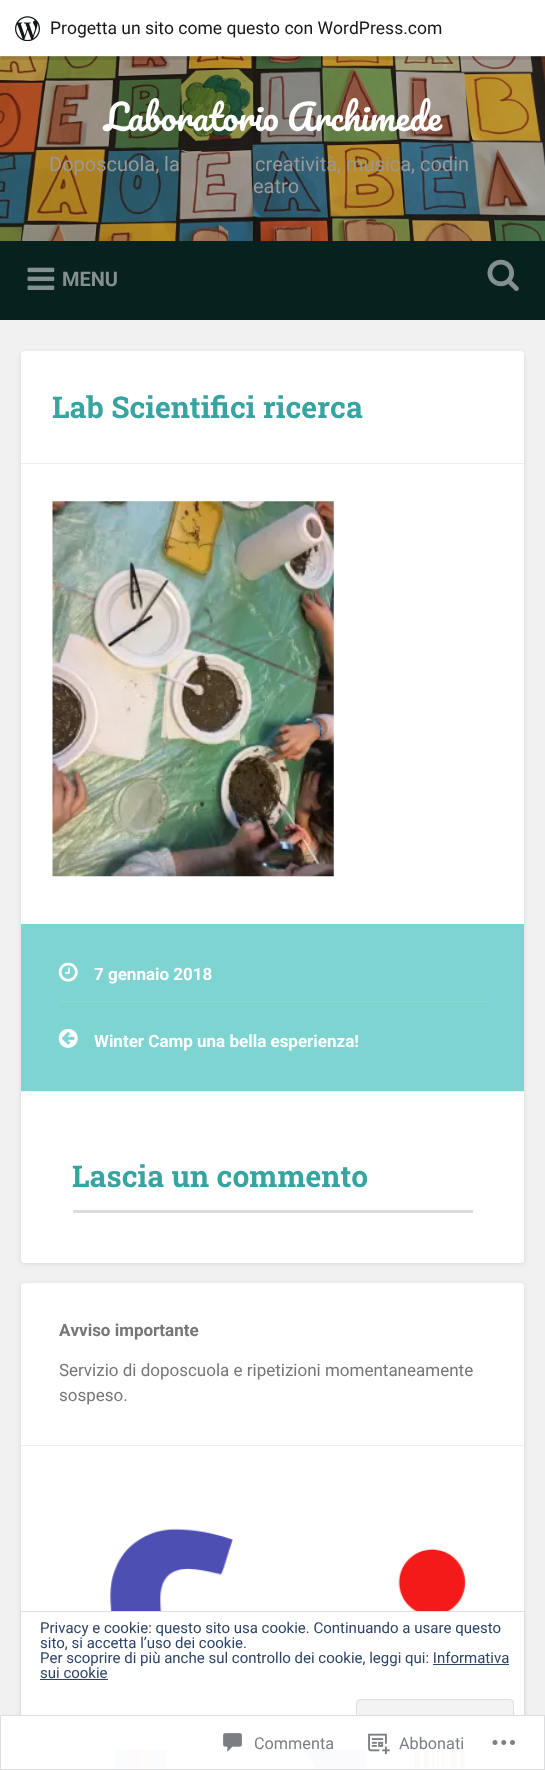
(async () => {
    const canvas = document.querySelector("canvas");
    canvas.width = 545;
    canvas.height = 1770;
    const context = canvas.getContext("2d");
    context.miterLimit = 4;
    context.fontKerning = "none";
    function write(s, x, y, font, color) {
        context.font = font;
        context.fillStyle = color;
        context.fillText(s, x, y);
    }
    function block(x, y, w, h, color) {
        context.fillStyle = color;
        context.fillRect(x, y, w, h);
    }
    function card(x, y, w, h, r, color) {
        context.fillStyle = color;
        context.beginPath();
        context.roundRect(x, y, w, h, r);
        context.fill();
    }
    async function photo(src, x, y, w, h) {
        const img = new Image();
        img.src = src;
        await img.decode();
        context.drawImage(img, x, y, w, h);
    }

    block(0, 0, 545, 1770, "rgb(241, 241, 242)");
    await photo("media/2.png", 0, 56, 545, 185);
    context.fillStyle = "rgba(0, 0, 0, 0.05)";
    context.filter = "blur(1px)";
    context.beginPath();
    context.rect(0, 1, 545, 57);
    context.fill();
    context.filter = "none";
    context.fillStyle = "rgba(0, 0, 0, 0.08)";
    context.beginPath();
    context.moveTo(1, 56);
    context.lineTo(1, 60);
    context.lineTo(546, 60);
    context.lineTo(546, 4);
    context.lineTo(545, 4);
    context.lineTo(545, 56);
    context.closePath();
    context.fill();
    block(0, 0, 545, 56, "rgb(255, 255, 255)");
    await photo("media/1.png", 15, 16, 25, 25);
    write("Progetta un sito come questo con WordPress.com", 50, 34, "17.5px Roboto", "rgb(23, 23, 23)");
    context.wordSpacing = "-1px";
    write("Laboratorio Archimede", 104, 131, "35px Pacifico", "rgb(255, 255, 255)");
    context.wordSpacing = "0px";
    write("Doposcuola, la", 49, 171, "20px Roboto", "rgb(153, 153, 153)");
    write("creatività, musica, codin", 255, 171, "20px Roboto", "rgb(153, 153, 153)");
    write("eatro", 253, 193, "20px Roboto", "rgb(153, 153, 153)");
    block(0, 241, 545, 79, "rgb(7, 33, 31)");
    await photo("media/3.png", 27, 267, 28, 23);
    write("MENU", 62, 286, "bold 20px Roboto", "rgb(131, 144, 143)");
    await photo("media/4.png", 487, 259, 32, 32);
    context.fillStyle = "rgba(0, 0, 0, 0.1)";
    context.filter = "blur(2.5px)";
    context.beginPath();
    context.roundRect(21, 353, 503, 911, 4);
    context.fill();
    context.filter = "none";
    card(21, 351, 503, 912, 4, "rgb(255, 255, 255)");
    block(21, 463, 503, 1, "rgb(238, 238, 238)");
    write("Lab Scientifici ricerca", 52, 418, "bold 30px Roboto Slab", "rgb(54, 164, 160)");
    await photo("media/5.png", 52, 501, 282, 376);
    block(21, 924, 503, 167, "rgb(126, 212, 209)");
    await photo("media/6.png", 58, 962, 20, 20);
    write("7 gennaio 2018", 94, 980, "bold 17px Roboto", "rgb(255, 255, 255)");
    block(59, 1001, 427, 1, "rgb(139, 216, 214)");
    await photo("media/7.png", 58, 1028, 20, 20);
    write("Winter Camp una bella esperienza!", 94, 1047, "bold 17px Roboto", "rgb(255, 255, 255)");
    context.beginPath();
    context.roundRect(21, 1091, 503, 172, [0, 0, 4, 4]);
    context.fill();
    block(21, 1091, 503, 1, "rgb(238, 238, 238)");
    write("Lascia un commento", 72, 1187, "bold 30px Roboto Slab", "rgb(54, 164, 160)");
    block(73, 1210, 400, 3, "rgb(220, 220, 222)");
    context.fillStyle = "rgba(0, 0, 0, 0.1)";
    context.filter = "blur(2.5px)";
    context.beginPath();
    context.roundRect(21, 1284, 503, 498, 4);
    context.fill();
    context.filter = "none";
    card(21, 1283, 503, 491, 4, "rgb(255, 255, 255)");
    write("Avviso importante", 59, 1336, "bold 17px Roboto", "rgb(118, 118, 118)");
    write("Servizio di doposcuola e ripetizioni momentaneamente", 59, 1376, "17px Roboto", "rgb(118, 118, 118)");
    write("sospeso.", 59, 1401, "17px Roboto", "rgb(118, 118, 118)");
    block(21, 1445, 503, 1, "rgb(238, 238, 238)");
    await photo("media/8.png", 78, 1528, 388, 242);
    block(78, 1612, 388, 137, "rgb(255, 255, 255)");
    context.strokeStyle = "rgb(222, 222, 222)";
    context.strokeRect(20.5, 1611.5, 504, 138);
    write("Privacy e cookie: questo sito usa cookie. Continuando a usare questo", 40, 1633, "15px Roboto", "rgb(46, 68, 103)");
    write("sito, si accetta l’uso dei cookie.", 40, 1648, "15px Roboto", "rgb(46, 68, 103)");
    write("Per scoprire di più anche sul controllo dei cookie, leggi qui: Informativa", 40, 1663, "15px Roboto", "rgb(46, 68, 103)");
    write("sui cookie", 40, 1678, "15px Roboto", "rgb(46, 68, 103)");
    block(433, 1664, 76, 1, "rgb(46, 68, 103)");
    block(40, 1679, 68, 1, "rgb(46, 68, 103)");
    context.fillStyle = "rgb(243, 243, 243)";
    context.beginPath();
    context.roundRect(356.5, 1699.5, 157, 39, 3.5);
    context.fill();
    context.stroke();
    block(0, 1715, 545, 55, "rgba(255, 255, 255, 0.98)");
    context.strokeStyle = "rgba(220, 220, 222, 0.98)";
    context.strokeRect(0.5, 1715.5, 544, 54);
    await photo("media/9.png", 223, 1733, 19, 19);
    write("Commenta", 254, 1749, "16.25px Roboto", "rgb(123, 127, 132)");
    await photo("media/10.png", 368, 1733, 22, 22);
    write("Abbonati", 399, 1749, "16.25px Roboto", "rgb(123, 127, 132)");
    await photo("media/11.png", 492, 1740, 23, 5);
})();
